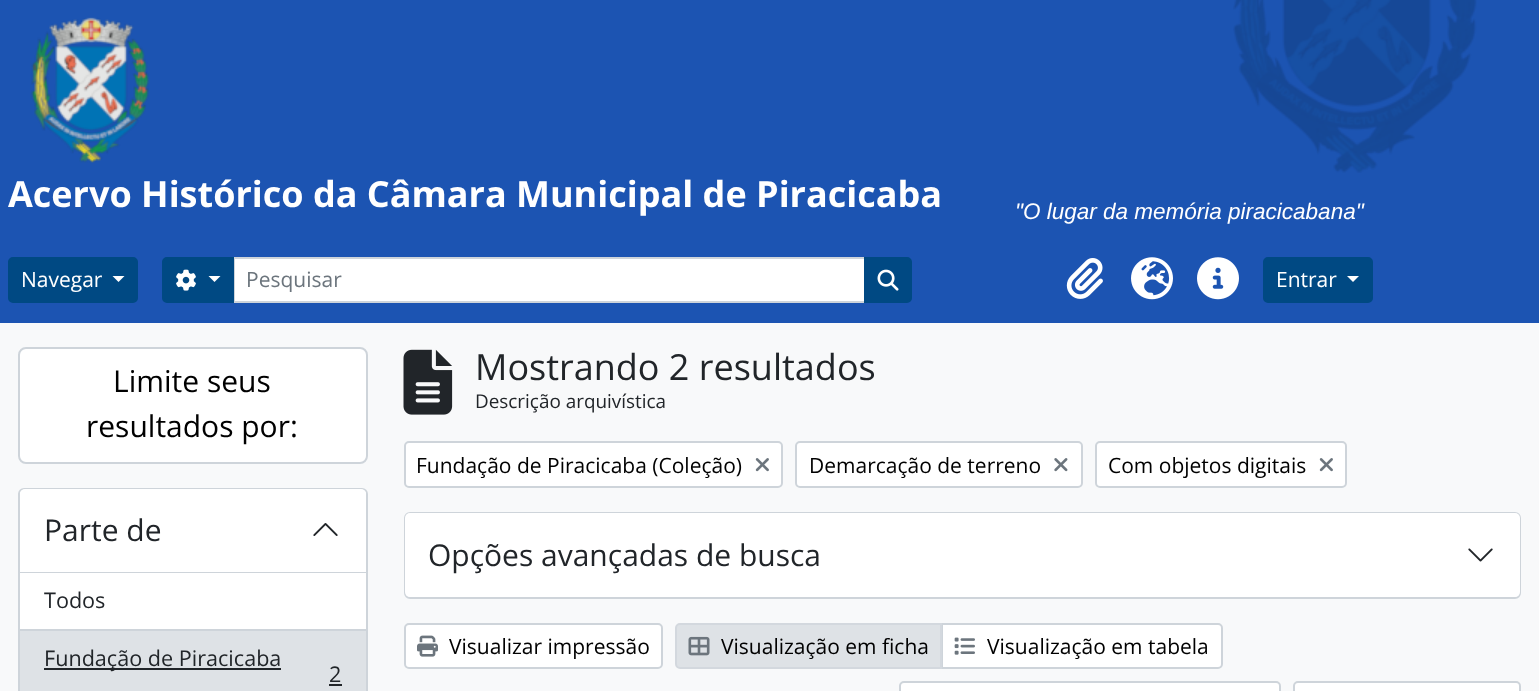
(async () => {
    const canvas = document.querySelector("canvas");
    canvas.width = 1539;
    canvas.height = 691;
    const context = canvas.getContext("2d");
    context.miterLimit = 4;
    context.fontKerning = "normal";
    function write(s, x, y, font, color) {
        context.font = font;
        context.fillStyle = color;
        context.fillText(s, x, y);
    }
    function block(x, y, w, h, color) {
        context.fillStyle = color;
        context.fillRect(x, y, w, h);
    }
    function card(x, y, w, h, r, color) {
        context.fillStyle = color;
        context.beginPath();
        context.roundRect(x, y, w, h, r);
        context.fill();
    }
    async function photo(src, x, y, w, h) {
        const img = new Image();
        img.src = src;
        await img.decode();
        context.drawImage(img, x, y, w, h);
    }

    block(0, 0, 1539, 691, "rgb(248, 249, 250)");
    block(0, 0, 1539, 323, "rgb(28, 84, 178)");
    await photo("media/1.png", 1233, 0, 244, 173);
    await photo("media/2.png", 31, 17, 118, 146);
    write("Acervo Histórico da Câmara Municipal de Piracicaba", 8, 207, "bold 36px Open Sans", "rgb(255, 255, 255)");
    write("\"O lugar da memória piracicabana\"", 1015, 219, "italic 22.5px Liberation Sans", "rgb(255, 255, 255)");
    context.fillStyle = "rgb(0, 73, 131)";
    context.beginPath();
    context.roundRect(9, 258, 128, 44, 4);
    context.fill();
    context.strokeStyle = "rgb(0, 73, 131)";
    context.lineWidth = 2;
    context.stroke();
    write("Navegar", 21, 287, "21px Open Sans", "rgb(255, 255, 255)");
    context.beginPath();
    context.moveTo(112.5, 276);
    context.lineTo(124.5, 276);
    context.lineTo(118.5, 282);
    context.closePath();
    context.fill();
    context.beginPath();
    context.rect(234, 258, 631, 44);
    context.fill();
    context.strokeStyle = "rgb(206, 212, 218)";
    context.stroke();
    context.fillStyle = "rgb(0, 73, 131)";
    context.beginPath();
    context.roundRect(163, 258, 70, 44, [4, 0, 0, 4]);
    context.fill();
    context.strokeStyle = "rgb(0, 73, 131)";
    context.stroke();
    await photo("media/3.png", 176, 269, 20, 22);
    context.fillStyle = "rgb(255, 255, 255)";
    context.beginPath();
    context.moveTo(208.5, 276);
    context.lineTo(220.5, 276);
    context.lineTo(214.5, 282);
    context.closePath();
    context.fill();
    write("Pesquisar", 246, 287, "21px Open Sans", "rgb(108, 117, 125)");
    context.fillStyle = "rgb(0, 73, 131)";
    context.beginPath();
    context.roundRect(865, 258, 46, 44, [0, 4, 4, 0]);
    context.fill();
    context.stroke();
    await photo("media/4.png", 877, 269, 22, 22);
    await photo("media/5.png", 1066, 258, 37, 41);
    await photo("media/6.png", 1131, 257, 42, 43);
    await photo("media/7.png", 1197, 257, 42, 43);
    context.beginPath();
    context.roundRect(1264, 258, 108, 44, 4);
    context.fill();
    context.stroke();
    write("Entrar", 1276, 287, "21px Open Sans", "rgb(255, 255, 255)");
    context.beginPath();
    context.moveTo(1347, 276);
    context.lineTo(1359, 276);
    context.lineTo(1353, 282);
    context.closePath();
    context.fill();
    context.beginPath();
    context.roundRect(19, 348, 348, 115, 7);
    context.fill();
    context.strokeStyle = "rgb(206, 212, 218)";
    context.stroke();
    write("Limite seus", 113, 392, "30px Open Sans", "rgb(0, 0, 0)");
    write("resultados por:", 86, 437, "30px Open Sans", "rgb(0, 0, 0)");
    context.fillStyle = "rgb(255, 255, 255)";
    context.beginPath();
    context.roundRect(19, 489, 348, 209, 5);
    context.fill();
    context.stroke();
    context.beginPath();
    context.roundRect(20, 489, 346, 84, [5, 5, 0, 0]);
    context.fill();
    block(20, 572, 346, 1, "rgb(206, 212, 218)");
    write("Parte de", 44, 541, "30px Open Sans", "rgb(33, 37, 41)");
    await photo("media/8.png", 313, 523, 25, 13);
    write("Todos", 44, 608, "21.6px Open Sans", "rgb(33, 37, 41)");
    block(20, 631, 346, 60, "rgb(222, 226, 230)");
    block(20, 629, 346, 2, "rgb(206, 212, 218)");
    block(44, 668, 237, 2, "rgb(33, 37, 41)");
    write("Fundação de Piracicaba", 44, 666, "21.6px Open Sans", "rgb(33, 37, 41)");
    write("2", 329, 682, "21.6px Open Sans", "rgb(33, 37, 41)");
    block(329, 684, 13, 2, "rgb(33, 37, 41)");
    await photo("media/9.png", 403, 349, 50, 66);
    write("Mostrando 2 resultados", 475, 380, "36px Open Sans", "rgb(33, 37, 41)");
    write("Descrição arquivística", 475, 408, "18.9px Open Sans", "rgb(33, 37, 41)");
    context.fillStyle = "rgb(255, 255, 255)";
    context.beginPath();
    context.roundRect(405, 442, 377, 45, 4);
    context.fill();
    context.stroke();
    write("Fundação de Piracicaba (Coleção)", 416, 473, "21px Open Sans", "rgb(0, 0, 0)");
    await photo("media/10.png", 755, 458, 14, 14);
    context.fillStyle = "rgb(255, 255, 255)";
    context.beginPath();
    context.roundRect(796, 442, 286, 45, 4);
    context.fill();
    context.stroke();
    write("Demarcação de terreno", 809, 473, "21px Open Sans", "rgb(0, 0, 0)");
    await photo("media/11.png", 1054, 458, 14, 14);
    context.fillStyle = "rgb(255, 255, 255)";
    context.beginPath();
    context.roundRect(1096, 442, 250, 45, 4);
    context.fill();
    context.stroke();
    write("Com objetos digitais", 1108, 473, "21px Open Sans", "rgb(0, 0, 0)");
    await photo("media/10.png", 1319, 458, 14, 14);
    context.beginPath();
    context.roundRect(405, 513, 1115, 85, 5);
    context.stroke();
    card(405, 513, 1115, 84, 5, "rgb(255, 255, 255)");
    write("Opções avançadas de busca", 428, 566, "30px Open Sans", "rgb(33, 37, 41)");
    await photo("media/12.png", 1468, 548, 25, 14);
    context.fillStyle = "rgb(255, 255, 255)";
    context.beginPath();
    context.roundRect(405, 624, 257, 44, 4);
    context.fill();
    context.stroke();
    await photo("media/13.png", 417, 635, 21, 22);
    write("Visualizar impressão", 449, 654, "21px Open Sans", "rgb(0, 0, 0)");
    context.fillStyle = "rgb(255, 255, 255)";
    context.beginPath();
    context.roundRect(942, 624, 280, 44, [0, 4, 4, 0]);
    context.fill();
    context.stroke();
    context.fillStyle = "rgb(222, 226, 230)";
    context.beginPath();
    context.roundRect(676, 624, 265, 44, [4, 0, 0, 4]);
    context.fill();
    context.strokeStyle = "rgb(211, 216, 222)";
    context.stroke();
    await photo("media/14.png", 688, 636, 22, 20);
    write("Visualização em ficha", 721, 654, "21px Open Sans", "rgb(0, 0, 0)");
    await photo("media/15.png", 954, 637, 21, 18);
    write("Visualização em tabela", 987, 654, "21px Open Sans", "rgb(0, 0, 0)");
    context.fillStyle = "rgb(255, 255, 255)";
    context.beginPath();
    context.roundRect(900, 682, 380, 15, 4);
    context.fill();
    context.strokeStyle = "rgb(206, 212, 218)";
    context.stroke();
    context.beginPath();
    context.roundRect(1294, 682, 226, 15, 4);
    context.fill();
    context.stroke();
})();
